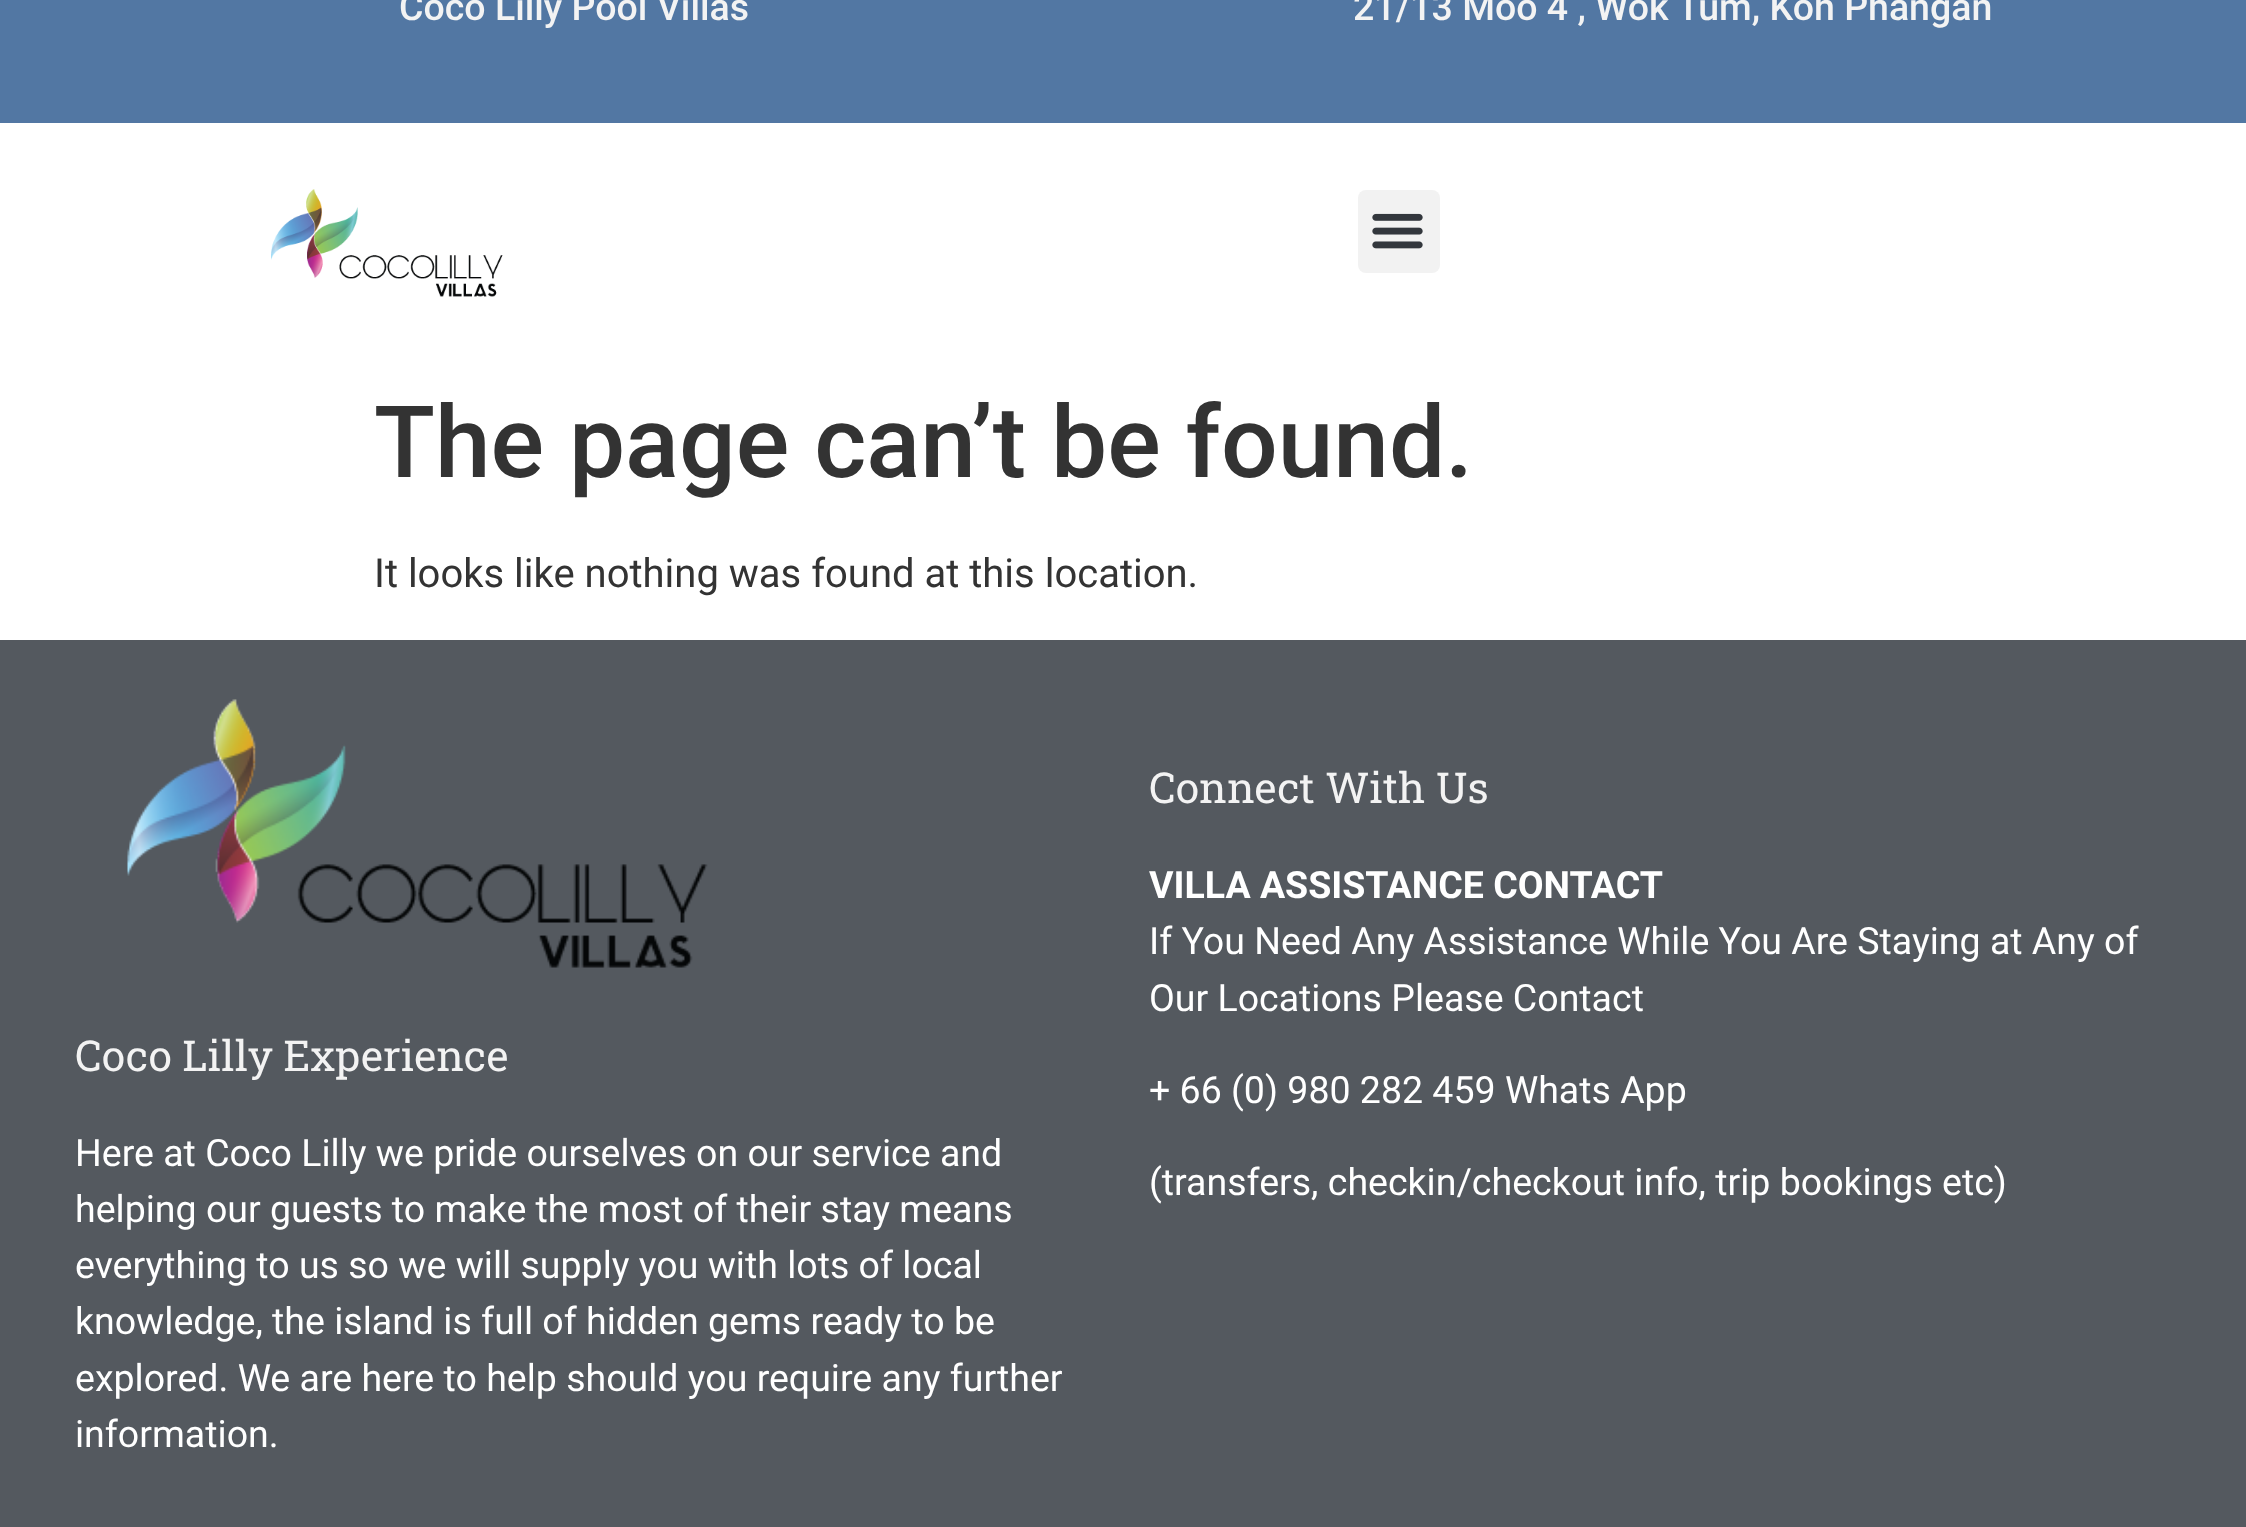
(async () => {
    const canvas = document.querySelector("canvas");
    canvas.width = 2246;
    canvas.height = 1527;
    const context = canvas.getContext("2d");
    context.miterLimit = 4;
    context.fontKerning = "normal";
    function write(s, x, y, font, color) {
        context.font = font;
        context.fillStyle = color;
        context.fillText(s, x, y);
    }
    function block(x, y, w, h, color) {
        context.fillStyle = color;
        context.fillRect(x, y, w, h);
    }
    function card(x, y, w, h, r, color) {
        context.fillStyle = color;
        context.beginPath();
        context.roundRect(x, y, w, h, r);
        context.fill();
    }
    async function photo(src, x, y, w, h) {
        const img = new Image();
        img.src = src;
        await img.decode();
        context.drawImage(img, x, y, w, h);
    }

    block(0, 0, 2246, 1527, "rgb(255, 255, 255)");
    block(0, 0, 2246, 123, "rgb(82, 119, 163)");
    write("Coco Lilly Pool Villas", 399, 20, "500 37.5px Roboto", "rgb(243, 243, 243)");
    write("21/13 Moo 4 , Wok Tum, Koh Phangan", 1353, 20, "500 37.5px Roboto", "rgb(243, 243, 243)");
    await photo("media/1.png", 271, 189, 232, 108);
    card(1358, 190, 82, 83, 8, "rgb(242, 242, 242)");
    await photo("media/2.png", 1372, 213, 51, 36);
    write("The page can’t be found.", 374, 477, "500 100px Roboto", "rgb(51, 51, 51)");
    write("It looks like nothing was found at this location.", 374, 587, "40px Roboto", "rgb(51, 51, 51)");
    block(0, 640, 2246, 887, "rgb(84, 89, 95)");
    await photo("media/3.png", 127, 699, 581, 269);
    write("Coco Lilly Experience", 75, 1071, "42.5px Roboto Slab", "rgb(243, 243, 243)");
    write("Here at Coco Lilly we pride ourselves on our service and", 75, 1166, "37.5px Roboto", "rgb(255, 255, 255)");
    write("helping our guests to make the most of their stay means", 75, 1222, "37.5px Roboto", "rgb(255, 255, 255)");
    write("everything to us so we will supply you with lots of local", 75, 1278, "37.5px Roboto", "rgb(255, 255, 255)");
    write("knowledge, the island is full of hidden gems ready to be", 75, 1334, "37.5px Roboto", "rgb(255, 255, 255)");
    write("explored. We are here to help should you require any further", 75, 1391, "37.5px Roboto", "rgb(255, 255, 255)");
    write("information.", 75, 1447, "37.5px Roboto", "rgb(255, 255, 255)");
    write("Connect With Us", 1149, 803, "42.5px Roboto Slab", "rgb(243, 243, 243)");
    write("VILLA ASSISTANCE CONTACT", 1149, 898, "bold 37.5px Roboto", "rgb(255, 255, 255)");
    write("If You Need Any Assistance While You Are Staying at Any of", 1149, 954, "37.5px Roboto", "rgb(255, 255, 255)");
    write("Our Locations Please Contact", 1149, 1011, "37.5px Roboto", "rgb(255, 255, 255)");
    write("+ 66 (0) 980 282 459 Whats App", 1149, 1103, "37.5px Roboto", "rgb(255, 255, 255)");
    write("(transfers, checkin/checkout info, trip bookings etc)", 1149, 1195, "37.5px Roboto", "rgb(255, 255, 255)");
})();
